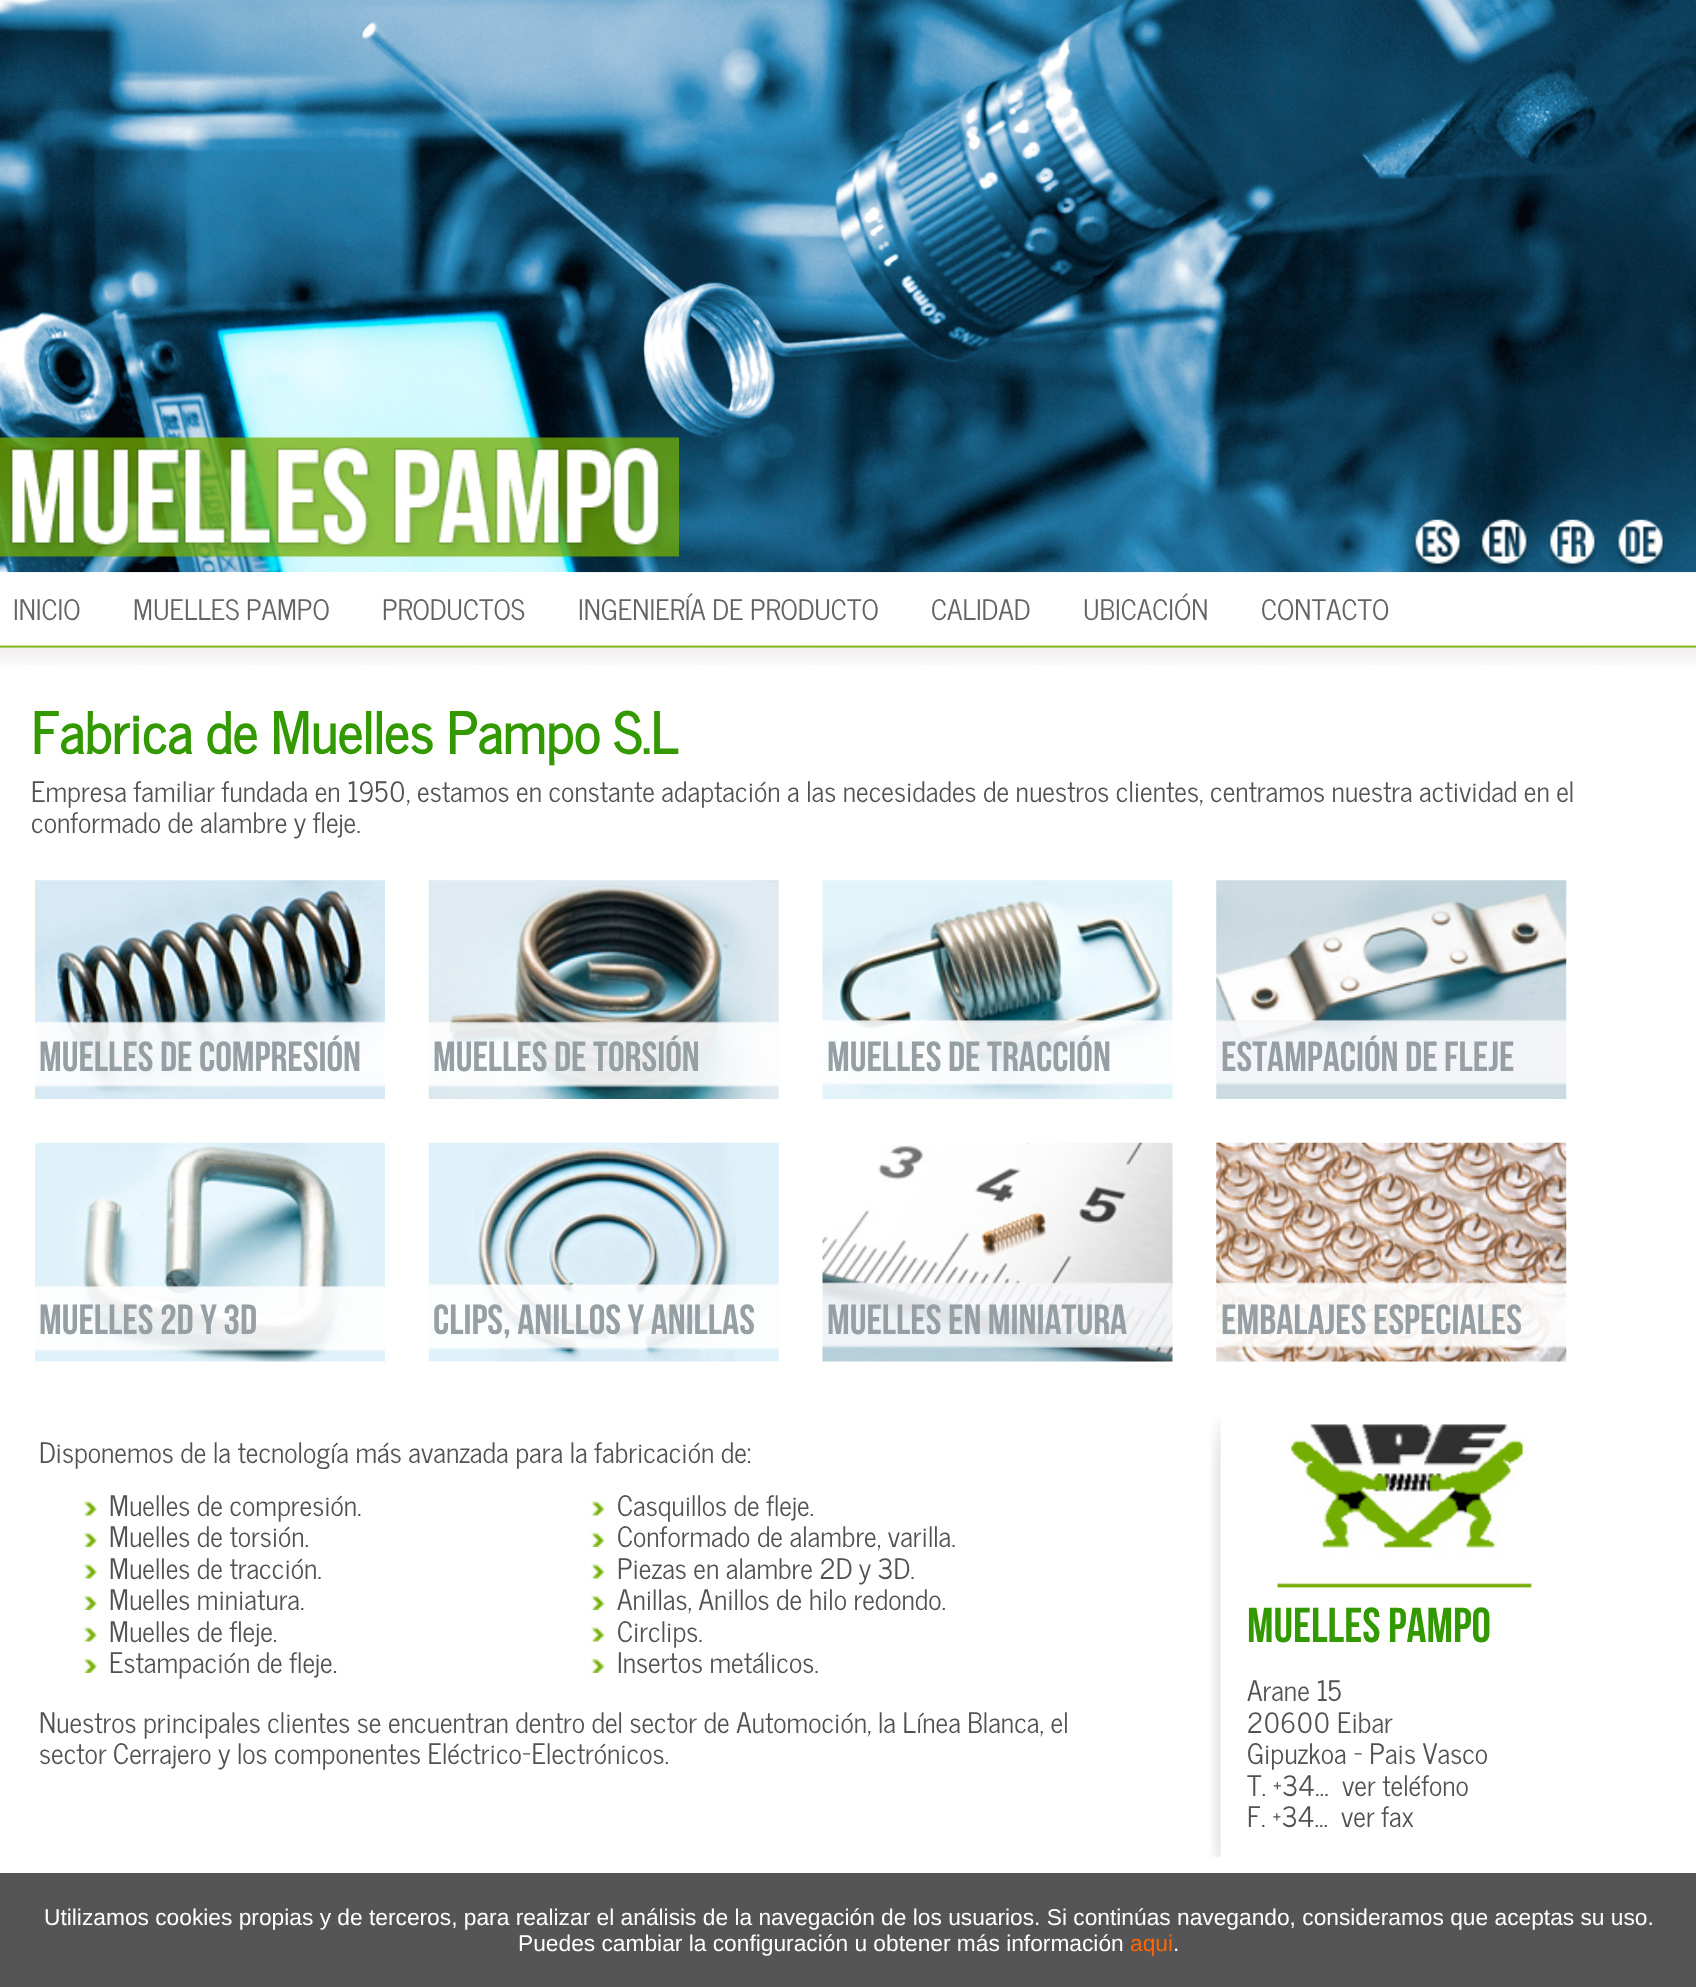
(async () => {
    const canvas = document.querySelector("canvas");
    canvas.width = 1696;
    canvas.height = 1987;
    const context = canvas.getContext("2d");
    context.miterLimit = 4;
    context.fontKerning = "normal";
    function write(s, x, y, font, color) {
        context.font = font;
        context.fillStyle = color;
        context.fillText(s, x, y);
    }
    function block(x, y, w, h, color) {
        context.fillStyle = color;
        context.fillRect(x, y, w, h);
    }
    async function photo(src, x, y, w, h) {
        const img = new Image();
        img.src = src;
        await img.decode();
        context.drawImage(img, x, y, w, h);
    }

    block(0, 0, 1696, 1987, "rgb(255, 255, 255)");
    await photo("media/1.png", 0, 572, 1696, 93);
    await photo("media/2.png", 0, 0, 1696, 573);
    await photo("media/3.png", 0, 437, 679, 120);
    await photo("media/4.png", 1414, 519, 47, 52);
    await photo("media/5.png", 1480, 519, 48, 52);
    await photo("media/6.png", 1549, 519, 47, 52);
    await photo("media/7.png", 1617, 519, 47, 52);
    write("INICIO", 13, 620, "500 28px News Cycle", "rgb(102, 99, 102)");
    write("MUELLES PAMPO", 133, 620, "500 28px News Cycle", "rgb(102, 99, 102)");
    write("PRODUCTOS", 382, 620, "500 28px News Cycle", "rgb(102, 99, 102)");
    write("INGENIERÍA DE PRODUCTO", 578, 620, "500 28px News Cycle", "rgb(102, 99, 102)");
    write("CALIDAD", 931, 620, "500 28px News Cycle", "rgb(102, 99, 102)");
    write("UBICACIÓN", 1083, 620, "500 28px News Cycle", "rgb(102, 99, 102)");
    write("CONTACTO", 1261, 620, "500 28px News Cycle", "rgb(102, 99, 102)");
    write("Fabrica de Muelles Pampo S.L", 31, 754, "bold 56px News Cycle", "rgb(51, 153, 0)");
    write("Empresa familiar fundada en 1950, estamos en constante adaptación a las necesidades de nuestros clientes, centramos nuestra actividad en el", 31, 802, "500 28px News Cycle", "rgb(82, 82, 82)");
    write("conformado de alambre y fleje.", 31, 833, "500 28px News Cycle", "rgb(82, 82, 82)");
    await photo("media/8.png", 35, 880, 350, 219);
    write("Muelles de compresión", 39, 1071, "42px Bebas Neue", "rgb(150, 159, 164)");
    await photo("media/9.png", 428, 880, 351, 219);
    write("Muelles de torsión", 433, 1071, "42px Bebas Neue", "rgb(150, 159, 164)");
    await photo("media/10.png", 822, 880, 351, 219);
    write("Muelles de tracción", 827, 1071, "42px Bebas Neue", "rgb(150, 159, 164)");
    await photo("media/11.png", 1216, 880, 351, 219);
    write("Estampación de fleje", 1221, 1071, "42px Bebas Neue", "rgb(150, 159, 164)");
    await photo("media/12.png", 35, 1142, 350, 220);
    write("Muelles 2D y 3D", 39, 1334, "42px Bebas Neue", "rgb(150, 159, 164)");
    await photo("media/13.png", 428, 1142, 351, 220);
    write("Clips, anillos y anillas", 433, 1334, "42px Bebas Neue", "rgb(150, 159, 164)");
    await photo("media/14.png", 822, 1142, 351, 220);
    write("Muelles en miniatura", 827, 1334, "42px Bebas Neue", "rgb(150, 159, 164)");
    await photo("media/15.png", 1216, 1142, 351, 220);
    write("Embalajes especiales", 1221, 1334, "42px Bebas Neue", "rgb(150, 159, 164)");
    write("Disponemos de la tecnología más avanzada para la fabricación de:", 39, 1463, "500 28px News Cycle", "rgb(82, 82, 82)");
    await photo("media/16.png", 83, 1501, 14, 15);
    write("Muelles de compresión.", 109, 1516, "500 28px News Cycle", "rgb(82, 82, 82)");
    await photo("media/17.png", 83, 1533, 14, 14);
    write("Muelles de torsión.", 109, 1547, "500 28px News Cycle", "rgb(82, 82, 82)");
    await photo("media/16.png", 83, 1564, 14, 15);
    write("Muelles de tracción.", 109, 1579, "500 28px News Cycle", "rgb(82, 82, 82)");
    await photo("media/17.png", 83, 1596, 14, 14);
    write("Muelles miniatura.", 109, 1610, "500 28px News Cycle", "rgb(82, 82, 82)");
    await photo("media/16.png", 83, 1627, 14, 15);
    write("Muelles de fleje.", 109, 1642, "500 28px News Cycle", "rgb(82, 82, 82)");
    await photo("media/17.png", 83, 1659, 14, 14);
    write("Estampación de fleje.", 109, 1673, "500 28px News Cycle", "rgb(82, 82, 82)");
    await photo("media/18.png", 591, 1501, 14, 15);
    write("Casquillos de fleje.", 617, 1516, "500 28px News Cycle", "rgb(82, 82, 82)");
    await photo("media/19.png", 591, 1533, 14, 14);
    write("Conformado de alambre, varilla.", 617, 1547, "500 28px News Cycle", "rgb(82, 82, 82)");
    await photo("media/18.png", 591, 1564, 14, 15);
    write("Piezas en alambre 2D y 3D.", 617, 1579, "500 28px News Cycle", "rgb(82, 82, 82)");
    await photo("media/19.png", 591, 1596, 14, 14);
    write("Anillas, Anillos de hilo redondo.", 617, 1610, "500 28px News Cycle", "rgb(82, 82, 82)");
    await photo("media/18.png", 591, 1627, 14, 15);
    write("Circlips.", 617, 1642, "500 28px News Cycle", "rgb(82, 82, 82)");
    await photo("media/19.png", 591, 1659, 14, 14);
    write("Insertos metálicos.", 617, 1673, "500 28px News Cycle", "rgb(82, 82, 82)");
    write("Nuestros principales clientes se encuentran dentro del sector de Automoción, la Línea Blanca, el", 39, 1733, "500 28px News Cycle", "rgb(82, 82, 82)");
    write("sector Cerrajero y los componentes Eléctrico-Electrónicos.", 39, 1764, "500 28px News Cycle", "rgb(82, 82, 82)");
    await photo("media/20.png", 1210, 1417, 11, 440);
    await photo("media/21.png", 1277, 1424, 255, 164);
    write("MUELLES PAMPO", 1247, 1642, "49px Bebas Neue", "rgb(51, 153, 0)");
    write("Arane 15", 1247, 1701, "500 28px News Cycle", "rgb(82, 82, 82)");
    write("20600 Eibar", 1247, 1733, "500 28px News Cycle", "rgb(82, 82, 82)");
    write("Gipuzkoa - Pais Vasco", 1247, 1764, "500 28px News Cycle", "rgb(82, 82, 82)");
    write("T. +34...", 1247, 1796, "500 28px News Cycle", "rgb(82, 82, 82)");
    write("ver teléfono", 1342, 1796, "500 28px News Cycle", "rgb(82, 82, 82)");
    write("F. +34...", 1247, 1827, "500 28px News Cycle", "rgb(82, 82, 82)");
    write("ver fax", 1341, 1827, "500 28px News Cycle", "rgb(82, 82, 82)");
    block(0, 1873, 1696, 114, "rgb(85, 85, 85)");
    write("Utilizamos cookies propias y de terceros, para realizar el análisis de la navegación de los usuarios. Si continúas navegando, consideramos que aceptas su uso.", 44, 1925, "22.75px Liberation Sans", "rgb(255, 255, 255)");
    write("Puedes cambiar la configuración u obtener más información", 518, 1951, "22.75px Liberation Sans", "rgb(255, 255, 255)");
    write("aqui", 1130, 1951, "22.75px Liberation Sans", "rgb(255, 102, 0)");
    write(".", 1173, 1951, "22.75px Liberation Sans", "rgb(255, 255, 255)");
})();
